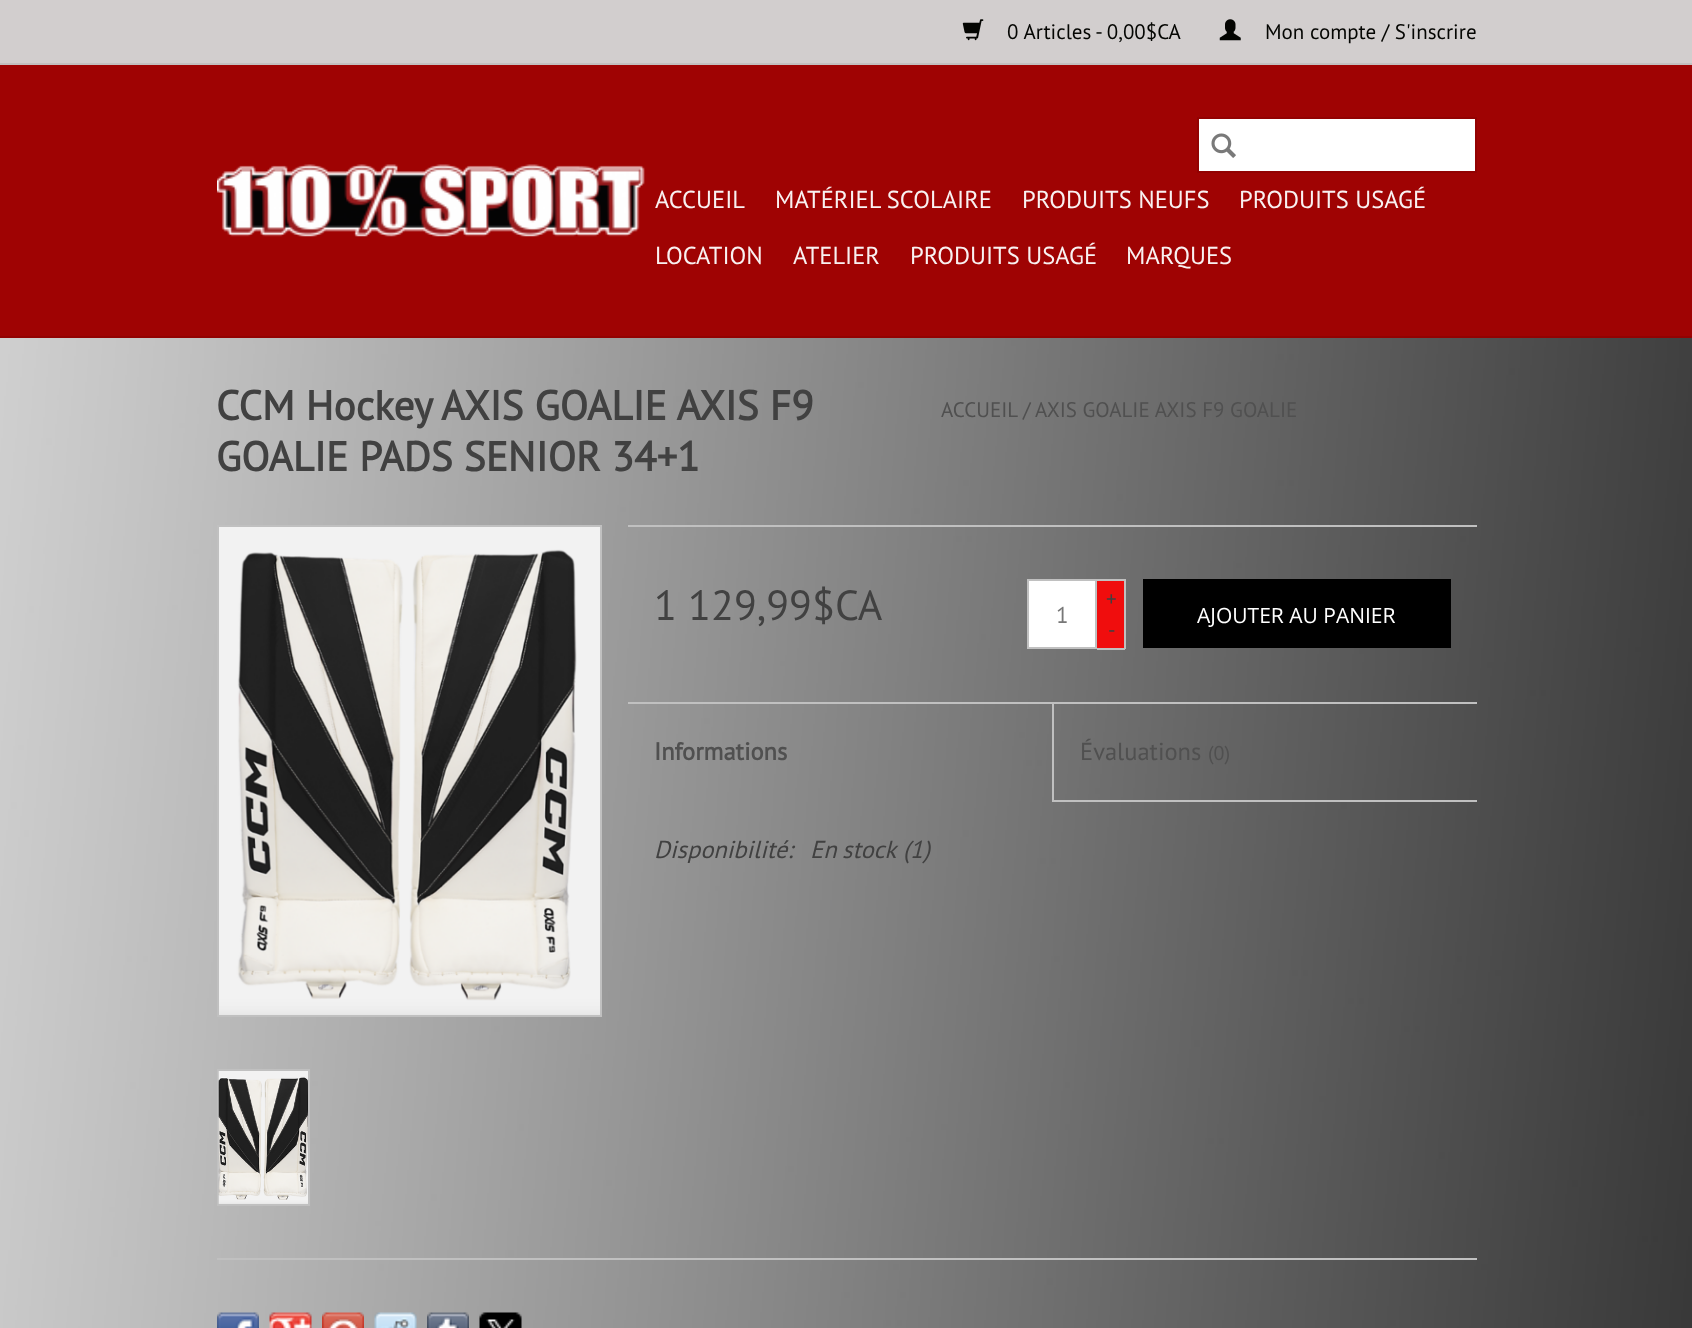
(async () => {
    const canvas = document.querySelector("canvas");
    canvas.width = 1692;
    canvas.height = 1328;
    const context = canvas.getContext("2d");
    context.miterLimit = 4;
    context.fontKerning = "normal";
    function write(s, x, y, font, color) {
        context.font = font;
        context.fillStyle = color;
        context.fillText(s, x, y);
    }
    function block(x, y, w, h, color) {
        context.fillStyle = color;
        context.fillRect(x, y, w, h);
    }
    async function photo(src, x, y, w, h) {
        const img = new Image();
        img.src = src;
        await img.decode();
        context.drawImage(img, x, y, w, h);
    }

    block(0, 0, 1692, 1328, "rgb(255, 255, 255)");
    await photo("media/1.png", 0, 338, 1692, 990);
    block(0, 65, 1692, 271, "rgb(159, 3, 3)");
    block(0, 336, 1692, 2, "rgb(146, 2, 2)");
    block(0, 0, 1692, 63, "rgb(210, 206, 206)");
    block(0, 63, 1692, 2, "rgb(195, 191, 191)");
    await photo("media/2.png", 962, 19, 22, 22);
    write("0 Articles - 0,00$CA", 1007, 39, "21px PT Sans", "rgb(4, 5, 2)");
    await photo("media/3.png", 1219, 19, 22, 22);
    write("Mon compte / S'inscrire", 1265, 39, "21px PT Sans", "rgb(4, 5, 2)");
    await photo("media/4.png", 217, 164, 428, 73);
    context.fillStyle = "rgb(255, 255, 255)";
    context.beginPath();
    context.rect(1198, 118, 278, 54);
    context.fill();
    context.strokeStyle = "rgb(146, 2, 2)";
    context.lineWidth = 2;
    context.stroke();
    await photo("media/5.png", 1211, 133, 25, 25);
    write("ACCUEIL", 655, 208, "24.5px PT Sans", "rgb(249, 241, 241)");
    write("MATÉRIEL SCOLAIRE", 775, 208, "24.5px PT Sans", "rgb(249, 241, 241)");
    write("PRODUITS NEUFS", 1022, 208, "24.5px PT Sans", "rgb(249, 241, 241)");
    write("PRODUITS USAGÉ", 1239, 208, "24.5px PT Sans", "rgb(249, 241, 241)");
    write("LOCATION", 655, 264, "24.5px PT Sans", "rgb(249, 241, 241)");
    write("ATELIER", 793, 264, "24.5px PT Sans", "rgb(249, 241, 241)");
    write("PRODUITS USAGÉ", 910, 264, "24.5px PT Sans", "rgb(249, 241, 241)");
    write("MARQUES", 1126, 264, "24.5px PT Sans", "rgb(249, 241, 241)");
    write("CCM Hockey AXIS GOALIE AXIS F9", 216, 420, "bold 41.3px PT Sans", "rgb(65, 65, 65)");
    write("GOALIE PADS SENIOR 34+1", 216, 471, "bold 41.3px PT Sans", "rgb(65, 65, 65)");
    write("ACCUEIL", 941, 417, "21px PT Sans", "rgb(80, 80, 80)");
    write("/", 1023, 417, "21px PT Sans", "rgb(80, 80, 80)");
    write("AXIS GOALIE AXIS F9 GOALIE", 1035, 417, "21px PT Sans", "rgb(80, 80, 80)");
    context.strokeStyle = "rgb(192, 192, 192)";
    context.strokeRect(218, 526, 383, 490);
    await photo("media/6.png", 219, 527, 381, 488);
    context.strokeRect(218, 1070, 91, 135);
    await photo("media/7.png", 218, 1071, 90, 133);
    block(628, 525, 849, 2, "rgb(192, 192, 192)");
    write("1 129,99$CA", 654, 620, "42px PT Sans", "rgb(65, 65, 65)");
    context.fillStyle = "rgb(255, 255, 255)";
    context.beginPath();
    context.rect(1028, 580, 68, 68);
    context.fill();
    context.stroke();
    write("1", 1056, 623, "23px PT Sans", "rgb(119, 119, 119)");
    block(1097, 581, 27, 67, "rgb(240, 13, 13)");
    block(1097, 579, 28, 2, "rgb(192, 192, 192)");
    block(1124, 579, 2, 70, "rgb(192, 192, 192)");
    block(1097, 648, 28, 2, "rgb(192, 192, 192)");
    write("+", 1106, 606, "21px PT Sans", "rgb(65, 65, 65)");
    write("-", 1108, 637, "21px PT Sans", "rgb(65, 65, 65)");
    block(1143, 579, 308, 69, "rgb(0, 0, 0)");
    write("AJOUTER AU PANIER", 1197, 623, "21px Open Sans", "rgb(255, 255, 255)");
    block(628, 702, 849, 2, "rgb(192, 192, 192)");
    write("Informations", 654, 760, "bold 24.5px PT Sans", "rgb(80, 80, 80)");
    block(1052, 800, 425, 2, "rgb(192, 192, 192)");
    block(1052, 704, 2, 98, "rgb(192, 192, 192)");
    write("Évaluations", 1080, 760, "24.5px PT Sans", "rgb(80, 80, 80)");
    write("(0)", 1208, 760, "20px PT Sans", "rgb(80, 80, 80)");
    write("Disponibilité:", 654, 858, "italic 24.5px PT Sans", "rgb(65, 65, 65)");
    context.wordSpacing = "-1px";
    write("En stock", 810, 858, "italic 24.5px PT Sans", "rgb(65, 65, 65)");
    context.wordSpacing = "0px";
    write("(1)", 903, 858, "italic 24.5px PT Sans", "rgb(65, 65, 65)");
    block(217, 1258, 1260, 2, "rgb(192, 192, 192)");
    await photo("media/8.png", 217, 1312, 42, 16);
    await photo("media/9.png", 269, 1312, 43, 16);
    await photo("media/10.png", 322, 1312, 42, 16);
    await photo("media/11.png", 374, 1312, 43, 16);
    await photo("media/12.png", 427, 1312, 42, 16);
    await photo("media/13.png", 479, 1312, 43, 16);
})();
